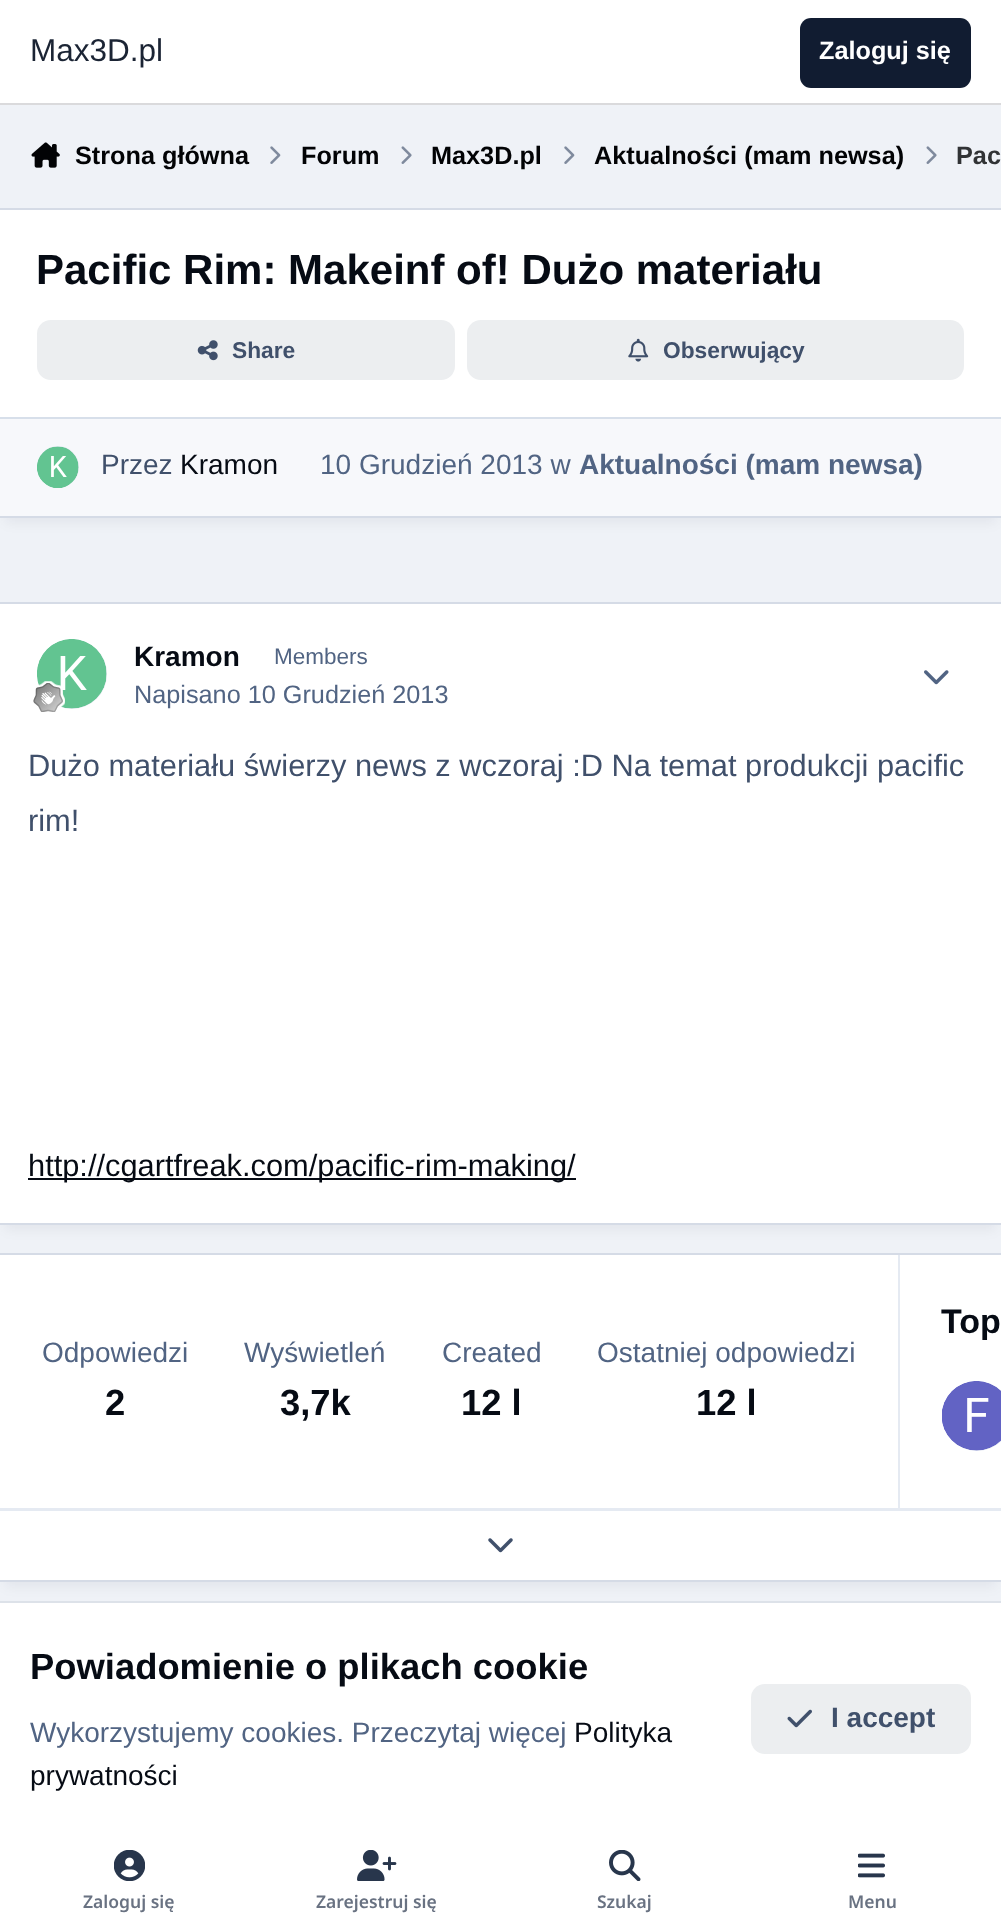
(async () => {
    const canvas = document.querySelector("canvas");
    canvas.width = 1001;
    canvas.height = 1929;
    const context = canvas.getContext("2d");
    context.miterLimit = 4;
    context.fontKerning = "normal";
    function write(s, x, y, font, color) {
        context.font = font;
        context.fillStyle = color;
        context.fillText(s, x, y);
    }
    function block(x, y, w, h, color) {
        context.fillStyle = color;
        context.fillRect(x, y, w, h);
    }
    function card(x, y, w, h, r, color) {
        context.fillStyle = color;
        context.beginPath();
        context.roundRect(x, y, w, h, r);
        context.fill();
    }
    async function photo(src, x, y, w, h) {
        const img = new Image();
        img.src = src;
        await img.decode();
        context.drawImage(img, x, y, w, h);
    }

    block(0, 0, 1001, 1929, "rgb(239, 242, 247)");
    block(0, 0, 1001, 103, "rgb(255, 255, 255)");
    block(0, 103, 1001, 2, "rgb(218, 218, 220)");
    write("Max3D.pl", 30, 61, "31.5px Liberation Sans", "rgb(27, 36, 52)");
    card(800, 18, 171, 70, 11, "rgb(17, 28, 49)");
    write("Zaloguj się", 819, 59, "bold 25.25px Liberation Sans", "rgb(255, 255, 255)");
    await photo("media/1.png", 31, 142, 29, 26);
    write("Strona główna", 75, 164, "bold 25.25px Liberation Sans", "rgb(2, 3, 5)");
    await photo("media/2.png", 270, 146, 11, 18);
    write("Forum", 301, 164, "bold 25.25px Liberation Sans", "rgb(2, 3, 5)");
    await photo("media/3.png", 401, 146, 11, 18);
    write("Max3D.pl", 431, 164, "bold 25.25px Liberation Sans", "rgb(2, 3, 5)");
    await photo("media/2.png", 564, 146, 11, 18);
    write("Aktualności (mam newsa)", 594, 164, "bold 25.25px Liberation Sans", "rgb(2, 3, 5)");
    await photo("media/3.png", 926, 146, 11, 18);
    write("Pac", 956, 164, "bold 25.25px Liberation Sans", "rgb(49, 51, 53)");
    context.fillStyle = "rgba(1, 3, 10, 0.05)";
    context.filter = "blur(6px)";
    context.beginPath();
    context.rect(5, 224, 991, 299);
    context.fill();
    context.filter = "none";
    block(0, 210, 1001, 207, "rgb(255, 255, 255)");
    block(0, 208, 1001, 2, "rgb(213, 219, 230)");
    block(0, 516, 1001, 2, "rgb(213, 219, 230)");
    write("Pacific Rim: Makeinf of! Dużo materiału", 36, 284, "bold 42px Liberation Sans", "rgb(6, 11, 20)");
    card(37, 320, 418, 60, 14, "rgb(236, 238, 240)");
    await photo("media/4.png", 197, 340, 21, 21);
    write("Share", 232, 358, "bold 22.75px Liberation Sans", "rgb(64, 80, 107)");
    card(467, 320, 497, 60, 14, "rgb(236, 238, 240)");
    await photo("media/5.png", 628, 338, 21, 24);
    write("Obserwujący", 663, 358, "bold 22.75px Liberation Sans", "rgb(64, 80, 107)");
    block(0, 419, 1001, 97, "rgb(247, 248, 251)");
    block(0, 417, 1001, 2, "rgb(215, 223, 234)");
    context.fillStyle = "rgb(229, 234, 242)";
    context.beginPath();
    context.arc(58, 467, 21, 0, Math.PI * 2);
    context.fill();
    await photo("media/6.png", 37, 446, 42, 42);
    write("Przez", 101, 474, "28px Liberation Sans", "rgb(64, 80, 107)");
    write("Kramon", 180, 474, "28px Liberation Sans", "rgb(6, 11, 20)");
    write("10 Grudzień 2013 w", 320, 474, "28px Liberation Sans", "rgb(81, 100, 131)");
    write("Aktualności (mam newsa)", 579, 474, "bold 28px Liberation Sans", "rgb(81, 100, 131)");
    context.fillStyle = "rgba(1, 3, 10, 0.05)";
    context.filter = "blur(6px)";
    context.beginPath();
    context.rect(5, 618, 991, 612);
    context.fill();
    context.filter = "none";
    block(0, 604, 1001, 619, "rgb(255, 255, 255)");
    block(0, 602, 1001, 2, "rgb(213, 219, 230)");
    block(0, 1223, 1001, 2, "rgb(213, 219, 230)");
    context.fillStyle = "rgb(229, 234, 242)";
    context.beginPath();
    context.arc(72, 674, 35, 0, Math.PI * 2);
    context.fill();
    await photo("media/7.png", 37, 639, 70, 70);
    await photo("media/8.png", 33, 681, 32, 31);
    write("Kramon", 134, 666, "bold 28px Liberation Sans", "rgb(6, 11, 20)");
    write("Members", 274, 664, "22.5px Liberation Sans", "rgb(81, 100, 131)");
    write("Napisano 10 Grudzień 2013", 134, 703, "25.25px Liberation Sans", "rgb(81, 100, 131)");
    await photo("media/9.png", 924, 670, 25, 15);
    write("Dużo materiału świerzy news z wczoraj :D Na temat produkcji pacific", 28, 776, "30.8px Liberation Sans", "rgb(64, 80, 107)");
    write("rim!", 28, 831, "30.8px Liberation Sans", "rgb(64, 80, 107)");
    block(28, 1178, 548, 2, "rgb(6, 11, 20)");
    write("http://cgartfreak.com/pacific-rim-making/", 28, 1176, "30.8px Liberation Sans", "rgb(6, 11, 20)");
    context.fillStyle = "rgba(1, 3, 10, 0.05)";
    context.filter = "blur(6px)";
    context.beginPath();
    context.rect(5, 1269, 991, 318);
    context.fill();
    context.filter = "none";
    block(0, 1255, 1001, 325, "rgb(255, 255, 255)");
    block(0, 1253, 1001, 2, "rgb(213, 219, 230)");
    block(0, 1580, 1001, 2, "rgb(213, 219, 230)");
    await photo("media/11.png", 488, 1538, 25, 15);
    context.save();
    context.beginPath();
    context.rect(0, 1255, 1001, 325);
    context.clip();
    context.strokeStyle = "rgb(229, 234, 242)";
    context.lineWidth = 2;
    context.strokeRect(-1, 1510, 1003, 71);
    context.restore();
    context.save();
    context.beginPath();
    context.rect(0, 1255, 1001, 254);
    context.clip();
    context.strokeStyle = "rgb(229, 234, 242)";
    context.lineWidth = 2;
    context.strokeRect(-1, 1254, 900, 255);
    context.strokeRect(899, 1254, 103, 255);
    context.restore();
    write("Top", 941, 1333, "bold 34px Liberation Sans", "rgb(6, 11, 20)");
    context.fillStyle = "rgb(229, 234, 242)";
    context.beginPath();
    context.arc(977, 1416, 35, 0, Math.PI * 2);
    context.fill();
    await photo("media/10.png", 942, 1381, 59, 70);
    write("Odpowiedzi", 42, 1362, "28px Liberation Sans", "rgb(81, 100, 131)");
    write("2", 105, 1415, "bold 36.4px Liberation Sans", "rgb(6, 11, 20)");
    write("Wyświetleń", 244, 1362, "28px Liberation Sans", "rgb(81, 100, 131)");
    write("3,7k", 280, 1415, "bold 36.4px Liberation Sans", "rgb(6, 11, 20)");
    write("Created", 442, 1362, "28px Liberation Sans", "rgb(81, 100, 131)");
    write("12 l", 461, 1415, "bold 36.4px Liberation Sans", "rgb(6, 11, 20)");
    write("Ostatniej odpowiedzi", 597, 1362, "28px Liberation Sans", "rgb(81, 100, 131)");
    write("12 l", 696, 1415, "bold 36.4px Liberation Sans", "rgb(6, 11, 20)");
    block(0, 1601, 1001, 2, "rgb(221, 226, 233)");
    block(0, 1603, 1001, 326, "rgb(255, 255, 255)");
    write("Powiadomienie o plikach cookie", 30, 1679, "bold 36.4px Liberation Sans", "rgb(6, 11, 20)");
    write("Wykorzystujemy cookies. Przeczytaj więcej", 30, 1742, "28px Liberation Sans", "rgb(81, 100, 131)");
    write("Polityka", 574, 1742, "28px Liberation Sans", "rgb(6, 11, 20)");
    write("prywatności", 30, 1785, "28px Liberation Sans", "rgb(6, 11, 20)");
    card(751, 1684, 220, 70, 14, "rgb(236, 238, 240)");
    await photo("media/12.png", 787, 1709, 25, 19);
    write("I accept", 831, 1727, "bold 28px Liberation Sans", "rgb(64, 80, 107)");
    await photo("media/13.png", 114, 1850, 31, 31);
    write("Zaloguj się", 83, 1908, "600 17.5px Noto Sans", "rgb(105, 114, 130)");
    await photo("media/14.png", 357, 1850, 40, 31);
    write("Zarejestruj się", 316, 1908, "600 17.5px Noto Sans", "rgb(105, 114, 130)");
    await photo("media/15.png", 609, 1850, 32, 31);
    write("Szukaj", 597, 1908, "600 17.5px Noto Sans", "rgb(105, 114, 130)");
    await photo("media/16.png", 858, 1853, 27, 25);
    write("Menu", 848, 1908, "600 17.5px Noto Sans", "rgb(105, 114, 130)");
})();
